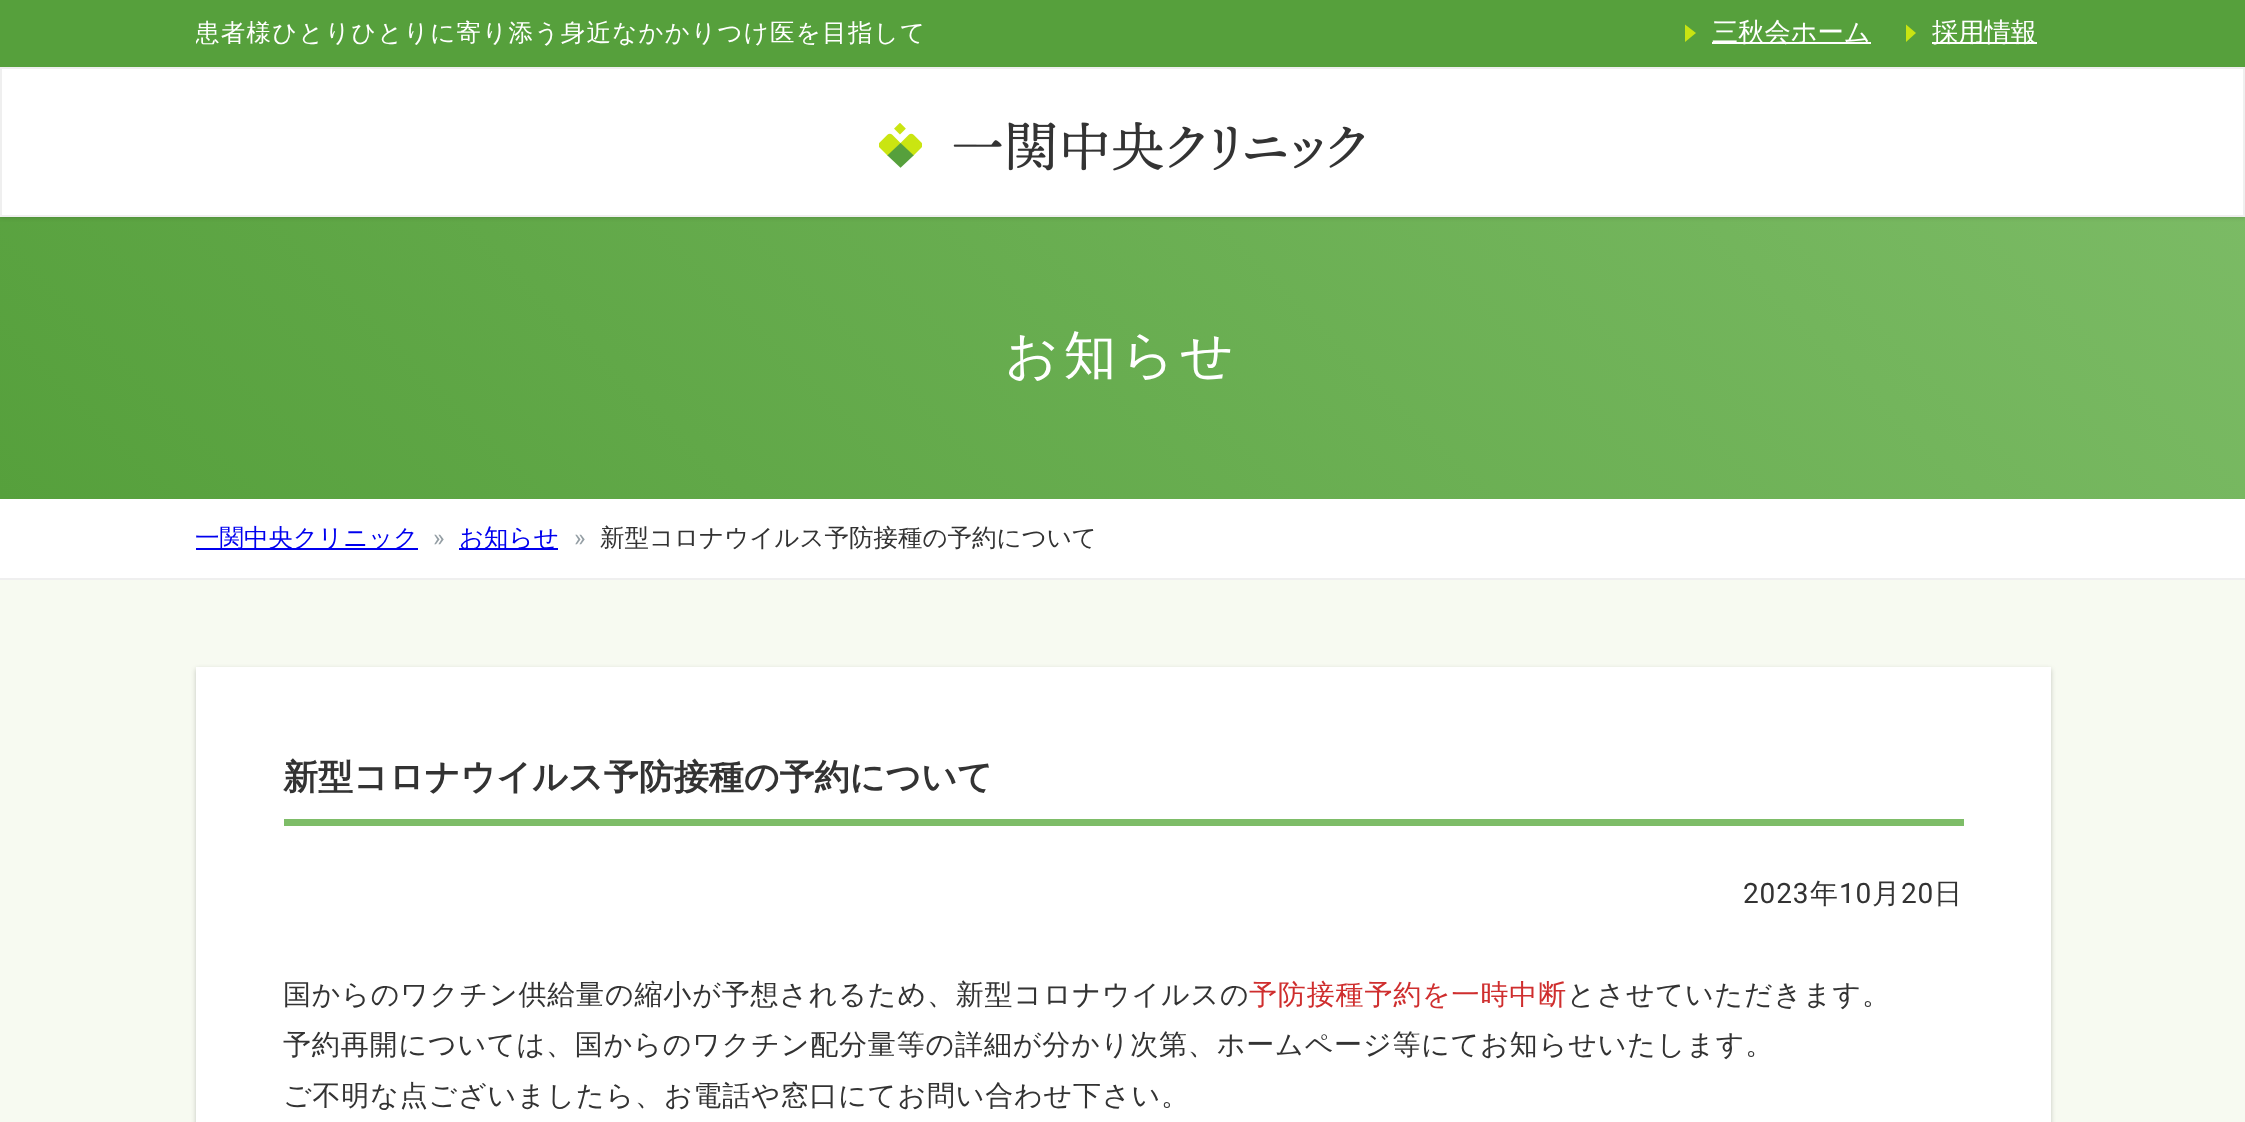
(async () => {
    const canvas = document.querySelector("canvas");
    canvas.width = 2245;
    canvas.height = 1122;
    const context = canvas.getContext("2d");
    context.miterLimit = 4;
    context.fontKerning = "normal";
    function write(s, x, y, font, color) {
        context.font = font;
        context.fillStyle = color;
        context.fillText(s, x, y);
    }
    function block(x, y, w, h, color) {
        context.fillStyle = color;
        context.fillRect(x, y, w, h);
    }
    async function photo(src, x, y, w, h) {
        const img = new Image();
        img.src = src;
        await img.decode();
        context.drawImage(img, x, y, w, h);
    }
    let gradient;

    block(0, 0, 2245, 1122, "rgb(255, 255, 255)");
    gradient = context.createLinearGradient(1809, -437, 437, 935);
    gradient.addColorStop(0, "rgb(126, 189, 104)");
    gradient.addColorStop(1, "rgb(86, 160, 60)");
    context.fillStyle = gradient;
    context.fillRect(0, 217, 2245, 282);
    context.fillStyle = "rgba(0, 0, 0, 0.2)";
    context.filter = "blur(2.5px)";
    context.beginPath();
    context.rect(0, 0, 2245, 217);
    context.fill();
    context.filter = "none";
    block(0, 0, 2245, 67, "rgb(86, 160, 60)");
    context.save();
    context.beginPath();
    context.rect(196, 0, 1855, 67);
    context.clip();
    context.letterSpacing = "1.25px";
    write("患者様ひとりひとりに寄り添う身近なかかりつけ医を目指して", 195, 41, "500 24.5px WenQuanYi Zen Hei", "rgb(255, 255, 255)");
    context.restore();
    context.fillStyle = "rgb(200, 228, 18)";
    context.beginPath();
    context.moveTo(1685, 42);
    context.lineTo(1685, 24.5);
    context.lineTo(1696, 33);
    context.closePath();
    context.fill();
    block(1712, 42, 159, 2, "rgb(255, 255, 255)");
    write("三秋会ホーム", 1712, 41, "500 26.25px WenQuanYi Zen Hei", "rgb(255, 255, 255)");
    context.fillStyle = "rgb(200, 228, 18)";
    context.beginPath();
    context.moveTo(1906, 42);
    context.lineTo(1906, 24.5);
    context.lineTo(1916, 33);
    context.closePath();
    context.fill();
    block(1932, 42, 105, 2, "rgb(255, 255, 255)");
    write("採用情報", 1932, 41, "500 26.25px WenQuanYi Zen Hei", "rgb(255, 255, 255)");
    context.beginPath();
    context.rect(1, 68, 2243, 148);
    context.fill();
    context.strokeStyle = "rgb(239, 239, 239)";
    context.lineWidth = 2;
    context.stroke();
    await photo("media/1.png", 879, 123, 43, 45);
    await photo("media/2.png", 953, 122, 412, 49);
    context.letterSpacing = "5px";
    write("お知らせ", 1005, 373, "500 52.5px WenQuanYi Zen Hei", "rgb(255, 255, 255)");
    block(0, 578, 2245, 2, "rgb(239, 239, 239)");
    block(196, 548, 222, 2, "rgb(0, 0, 238)");
    context.letterSpacing = "0px";
    write("一関中央クリニック", 195, 546, "500 24.5px WenQuanYi Zen Hei", "rgb(0, 0, 238)");
    write("»", 433, 546, "24.5px Roboto", "rgb(149, 159, 165)");
    block(459, 548, 99, 2, "rgb(0, 0, 238)");
    write("お知らせ", 459, 546, "500 24.5px WenQuanYi Zen Hei", "rgb(0, 0, 238)");
    write("»", 574, 546, "24.5px Roboto", "rgb(149, 159, 165)");
    write("新型コロナウイルス予防接種の予約について", 600, 546, "500 24.5px WenQuanYi Zen Hei", "rgb(51, 51, 51)");
    block(0, 580, 2245, 542, "rgb(247, 250, 241)");
    context.fillStyle = "rgba(0, 0, 0, 0.2)";
    context.filter = "blur(2.5px)";
    context.beginPath();
    context.rect(196, 669, 1855, 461);
    context.fill();
    context.filter = "none";
    block(196, 667, 1855, 455, "rgb(255, 255, 255)");
    block(284, 819, 1680, 7, "rgb(126, 189, 104)");
    write("新型コロナウイルス予防接種の予約について", 283, 789, "bold 35px WenQuanYi Zen Hei", "rgb(51, 51, 51)");
    context.letterSpacing = "0.85px";
    write("2023", 1743, 903, "28px Roboto", "rgb(51, 51, 51)");
    write("年", 1810, 903, "500 28px WenQuanYi Zen Hei", "rgb(51, 51, 51)");
    write("10", 1839, 903, "28px Roboto", "rgb(51, 51, 51)");
    write("月", 1872, 903, "500 28px WenQuanYi Zen Hei", "rgb(51, 51, 51)");
    write("20", 1901, 903, "28px Roboto", "rgb(51, 51, 51)");
    write("日", 1934, 903, "500 28px WenQuanYi Zen Hei", "rgb(51, 51, 51)");
    write("国からのワクチン供給量の縮小が予想されるため、新型コロナウイルスの", 283, 1004, "500 28px WenQuanYi Zen Hei", "rgb(51, 51, 51)");
    write("予防接種予約を一時中断", 1249, 1004, "500 28px WenQuanYi Zen Hei", "rgb(207, 46, 46)");
    write("とさせていただきます。", 1567, 1004, "500 28px WenQuanYi Zen Hei", "rgb(51, 51, 51)");
    write("予約再開については、国からのワクチン配分量等の詳細が分かり次第、ホームページ等にてお知らせいたします。", 283, 1054, "500 28px WenQuanYi Zen Hei", "rgb(51, 51, 51)");
    write("ご不明な点ございましたら、お電話や窓口にてお問い合わせ下さい。", 283, 1105, "500 28px WenQuanYi Zen Hei", "rgb(51, 51, 51)");
})();
